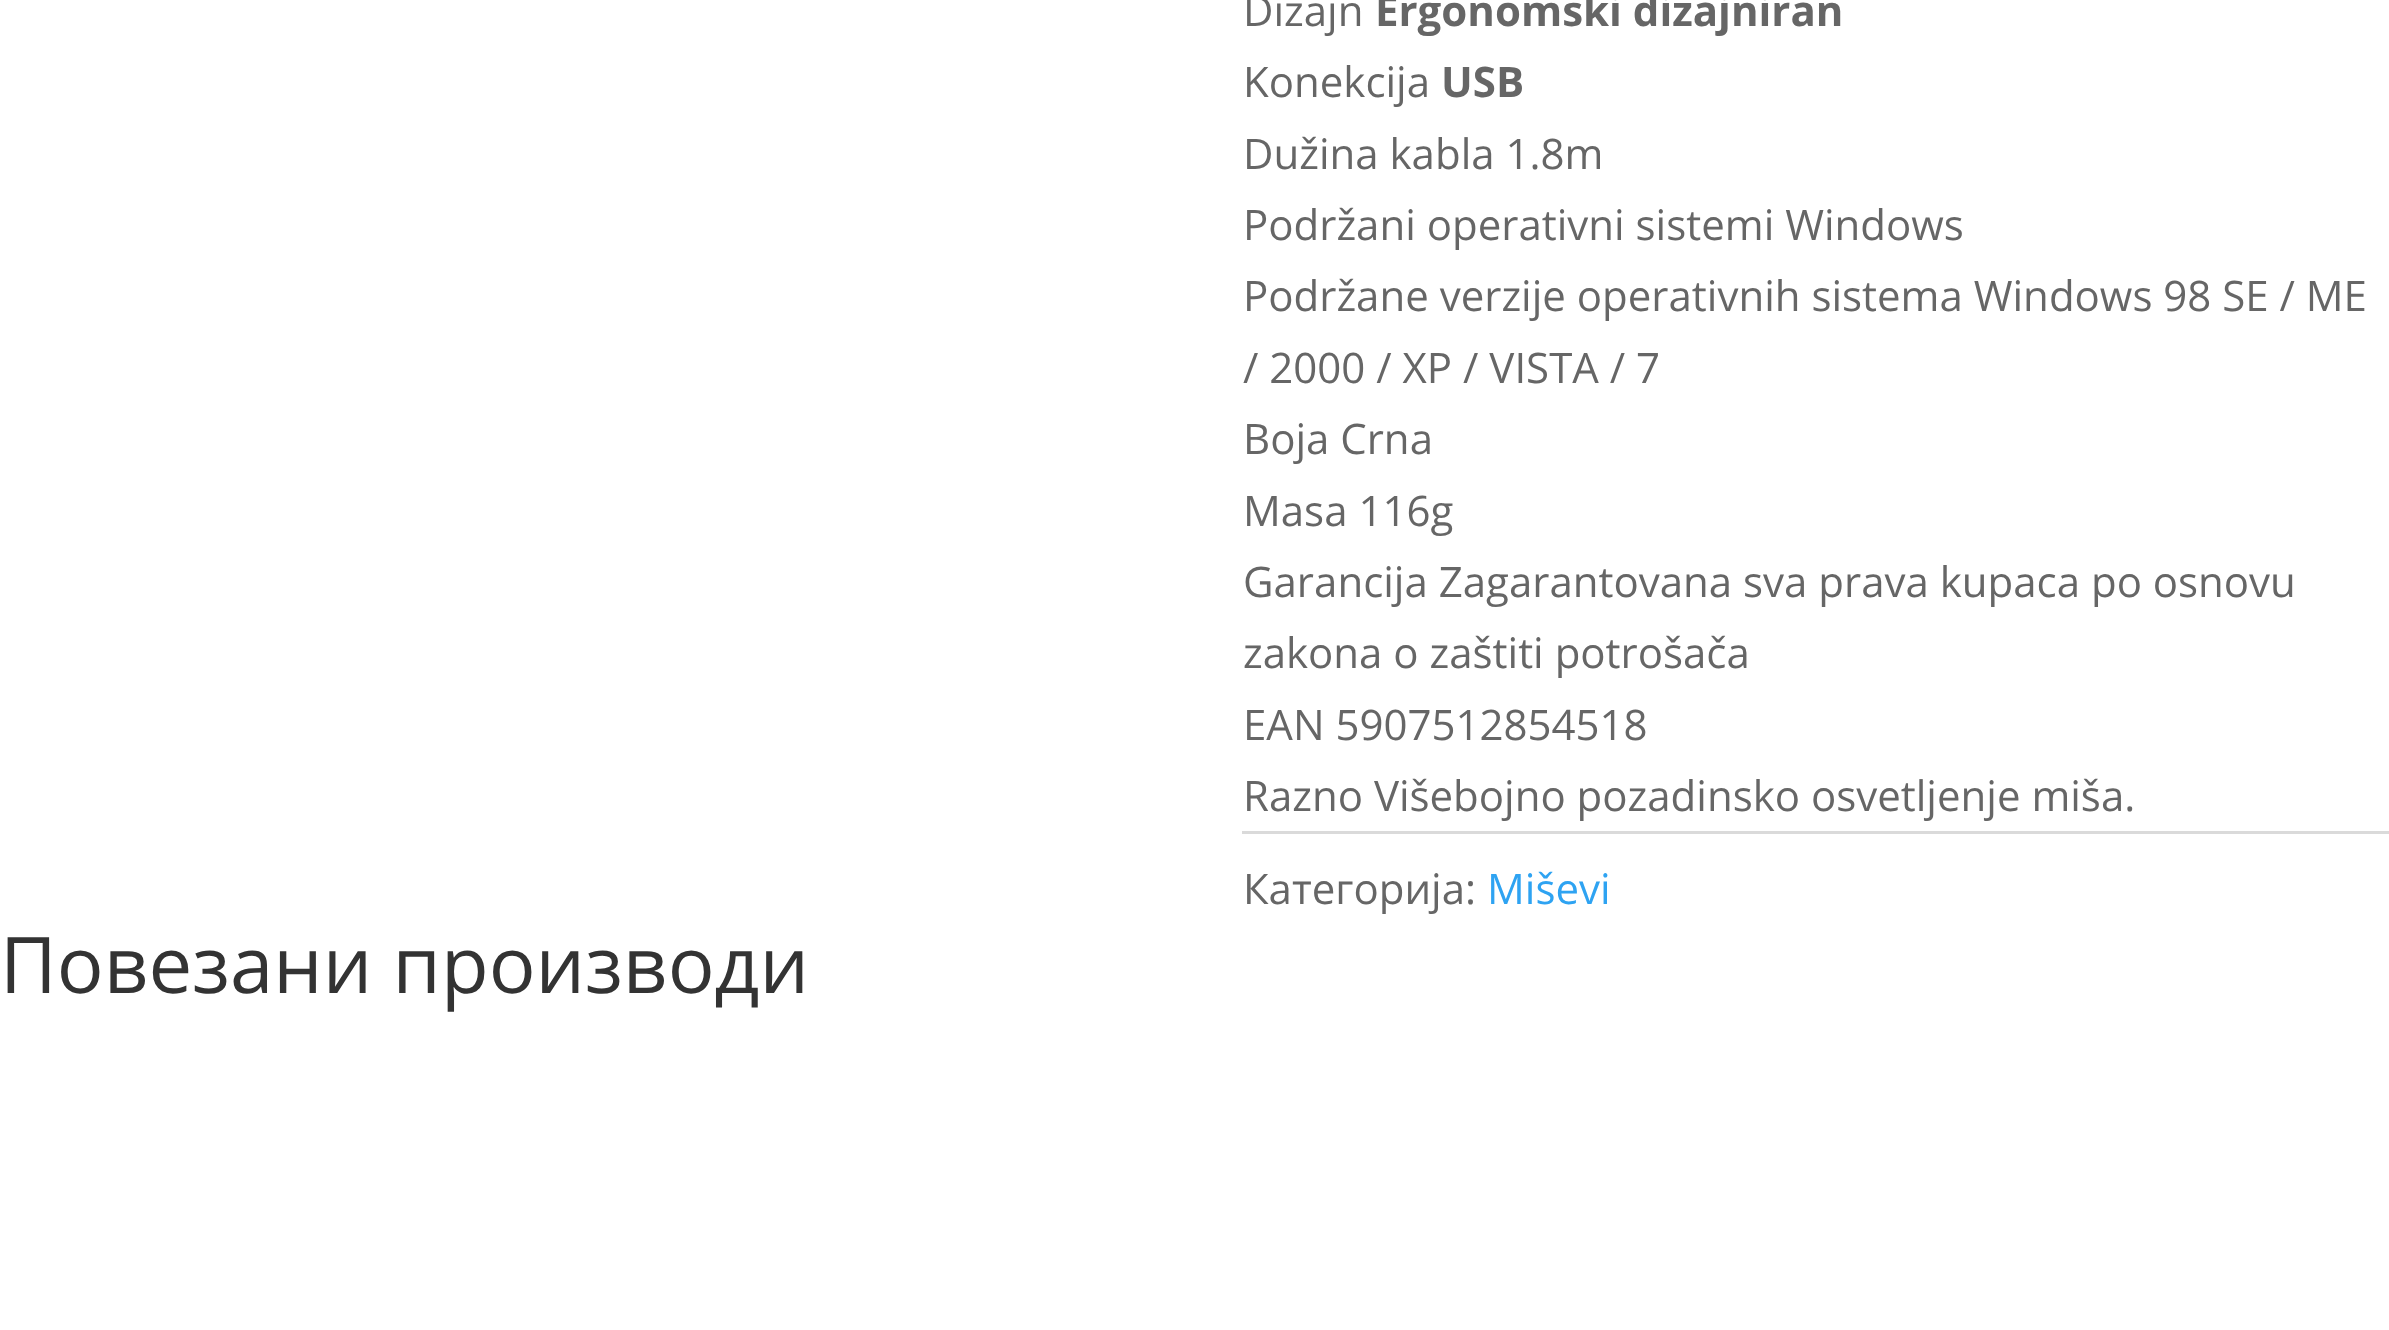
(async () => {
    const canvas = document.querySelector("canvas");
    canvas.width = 2389;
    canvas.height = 1330;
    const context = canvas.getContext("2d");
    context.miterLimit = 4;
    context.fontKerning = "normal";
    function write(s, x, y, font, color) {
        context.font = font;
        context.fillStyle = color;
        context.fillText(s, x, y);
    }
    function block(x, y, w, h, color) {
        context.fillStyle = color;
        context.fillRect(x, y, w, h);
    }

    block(0, 0, 2389, 1330, "rgb(255, 255, 255)");
    write("Dizajn", 1243, 26, "42px Open Sans", "rgb(102, 102, 102)");
    write("Ergonomski dizajniran", 1375, 26, "bold 42px Open Sans", "rgb(102, 102, 102)");
    write("Konekcija", 1243, 97, "42px Open Sans", "rgb(102, 102, 102)");
    write("USB", 1441, 97, "bold 42px Open Sans", "rgb(102, 102, 102)");
    write("Dužina kabla 1.8m", 1243, 169, "42px Open Sans", "rgb(102, 102, 102)");
    write("Podržani operativni sistemi Windows", 1243, 240, "42px Open Sans", "rgb(102, 102, 102)");
    write("Podržane verzije operativnih sistema Windows 98 SE / ME", 1243, 311, "42px Open Sans", "rgb(102, 102, 102)");
    write("/ 2000 / XP / VISTA / 7", 1243, 383, "42px Open Sans", "rgb(102, 102, 102)");
    write("Boja Crna", 1243, 454, "42px Open Sans", "rgb(102, 102, 102)");
    write("Masa 116g", 1243, 526, "42px Open Sans", "rgb(102, 102, 102)");
    write("Garancija Zagarantovana sva prava kupaca po osnovu", 1243, 597, "42px Open Sans", "rgb(102, 102, 102)");
    write("zakona o zaštiti potrošača", 1243, 668, "42px Open Sans", "rgb(102, 102, 102)");
    write("EAN 5907512854518", 1243, 740, "42px Open Sans", "rgb(102, 102, 102)");
    write("Razno Višebojno pozadinsko osvetljenje miša.", 1243, 811, "42px Open Sans", "rgb(102, 102, 102)");
    block(1242, 831, 1147, 3, "rgb(218, 218, 218)");
    write("Категорија:", 1243, 904, "42px Open Sans", "rgb(102, 102, 102)");
    write("Miševi", 1487, 904, "42px Open Sans", "rgb(46, 163, 242)");
    write("Повезани производи", 0, 993, "78px Open Sans", "rgb(51, 51, 51)");
})();
